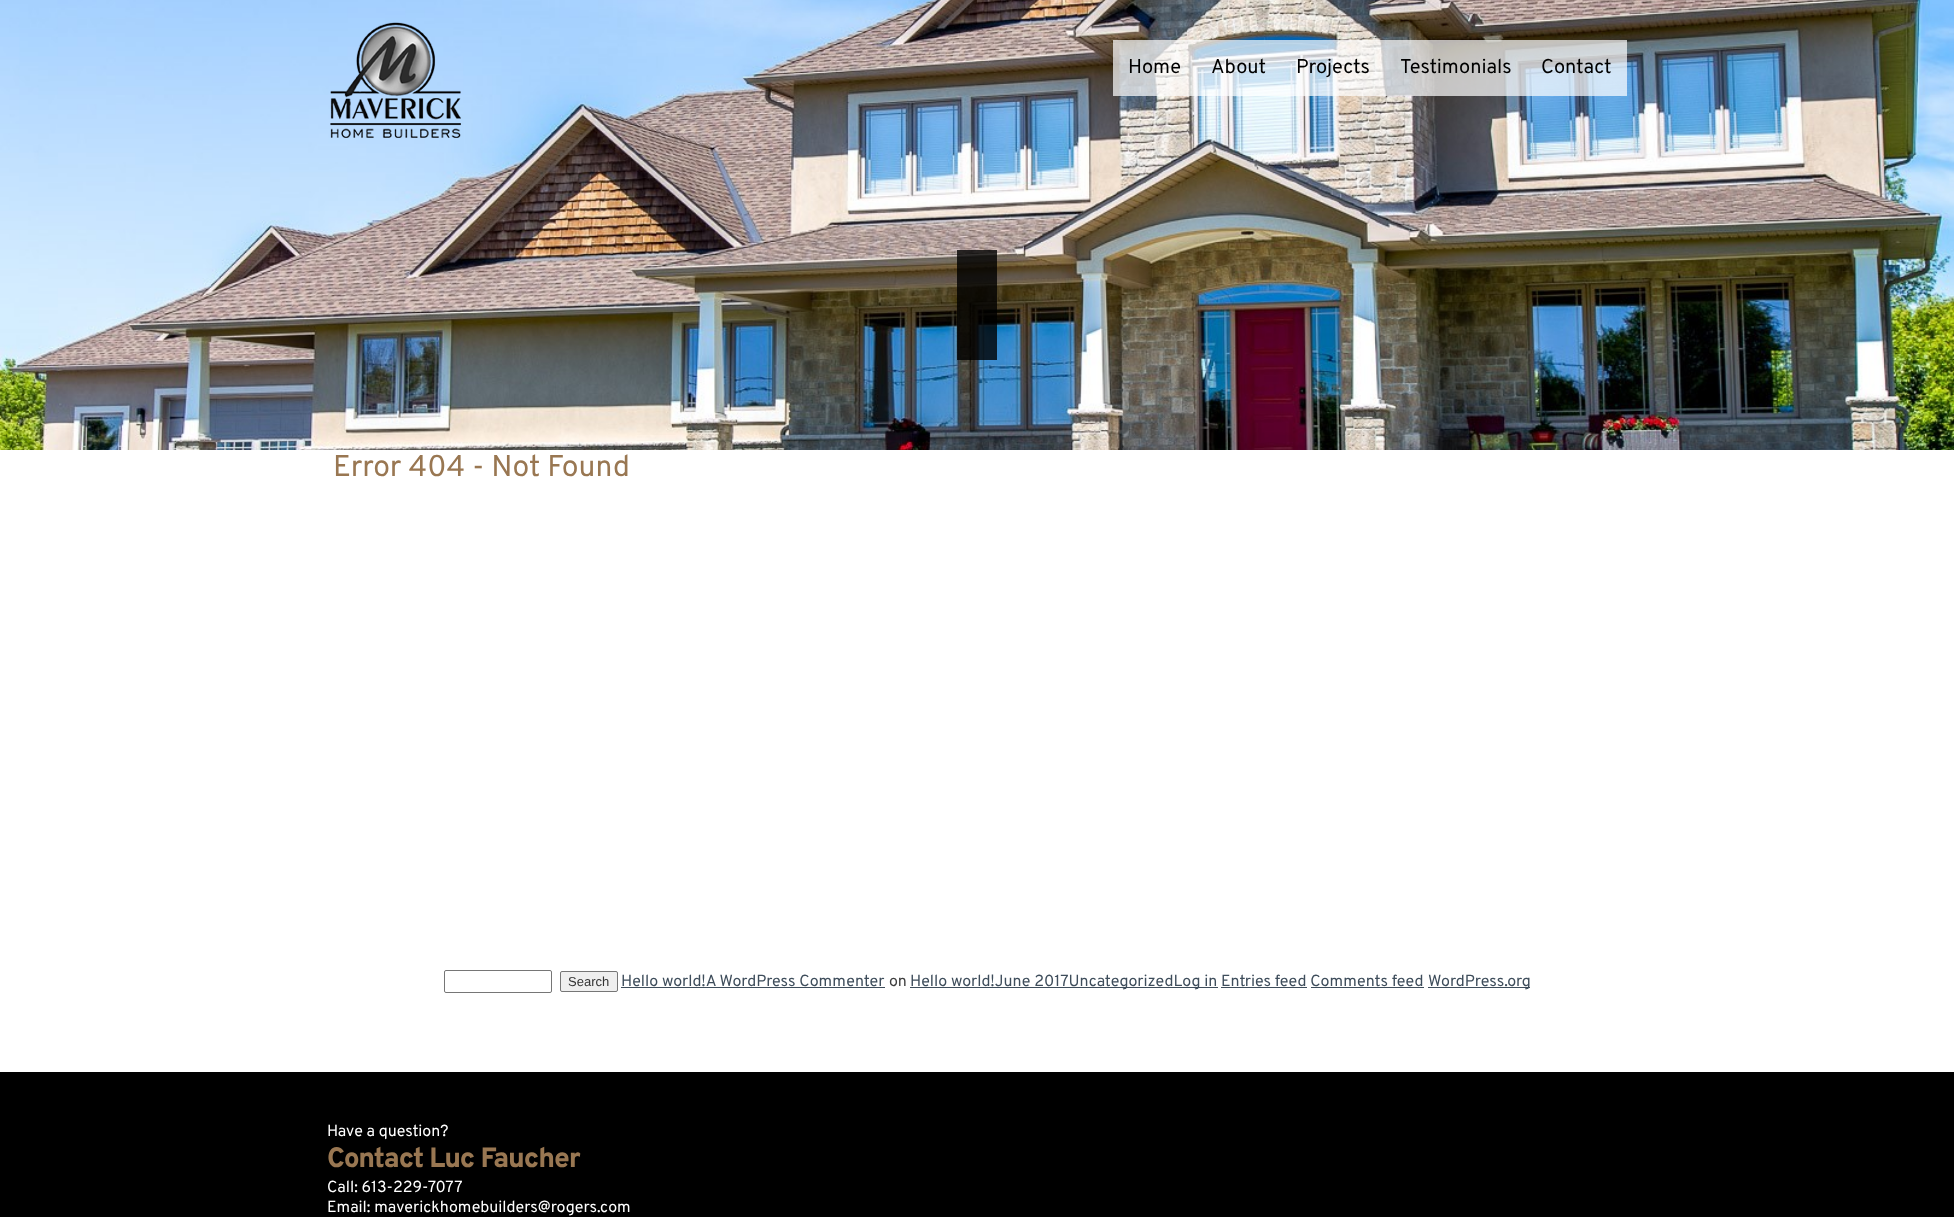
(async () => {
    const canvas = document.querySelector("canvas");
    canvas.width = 1954;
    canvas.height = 1217;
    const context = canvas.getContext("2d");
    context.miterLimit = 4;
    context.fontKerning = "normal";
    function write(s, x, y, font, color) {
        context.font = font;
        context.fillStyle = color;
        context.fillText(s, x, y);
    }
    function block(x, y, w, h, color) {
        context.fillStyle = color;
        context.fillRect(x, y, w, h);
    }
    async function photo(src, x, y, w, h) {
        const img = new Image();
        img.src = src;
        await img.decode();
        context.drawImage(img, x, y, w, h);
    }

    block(0, 0, 1954, 1217, "rgb(255, 255, 255)");
    await photo("media/1.png", 0, 0, 1954, 450);
    await photo("media/2.png", 330, 22, 131, 116);
    block(1113, 40, 514, 56, "rgba(255, 255, 255, 0.7)");
    write("Home", 1128, 73, "20px Overpass", "rgb(0, 0, 0)");
    write("About", 1211, 73, "20px Overpass", "rgb(0, 0, 0)");
    write("Projects", 1296, 73, "20px Overpass", "rgb(0, 0, 0)");
    write("Testimonials", 1400, 73, "20px Overpass", "rgb(0, 0, 0)");
    write("Contact", 1541, 73, "20px Overpass", "rgb(0, 0, 0)");
    block(957, 250, 40, 110, "rgba(0, 0, 0, 0.8)");
    write("Error 404 - Not Found", 333, 476, "30px Overpass", "rgb(153, 119, 82)");
    context.beginPath();
    context.roundRect(444.5, 970.5, 107, 22, 1.5);
    context.strokeStyle = "rgb(118, 118, 118)";
    context.stroke();
    context.fillStyle = "rgb(239, 239, 239)";
    context.beginPath();
    context.roundRect(560.5, 971.5, 57, 20, 1.5);
    context.fill();
    context.stroke();
    write("Search", 568, 986, "13px Liberation Sans", "rgb(51, 51, 51)");
    write("Hello world!A WordPress Commenter", 621, 986, "16px Overpass", "rgb(62, 77, 91)");
    block(621, 987, 264, 1, "rgb(62, 77, 91)");
    write("on", 889, 986, "16px Overpass", "rgb(63, 63, 63)");
    block(910, 987, 308, 1, "rgb(62, 77, 91)");
    write("Hello world!June 2017UncategorizedLog in Entries feed Comments feed", 910, 986, "16px Overpass", "rgb(62, 77, 91)");
    block(1221, 987, 86, 1, "rgb(62, 77, 91)");
    block(1311, 987, 113, 1, "rgb(62, 77, 91)");
    block(1428, 987, 102, 1, "rgb(62, 77, 91)");
    write("WordPress.org", 1428, 986, "16px Overpass", "rgb(62, 77, 91)");
    block(0, 1072, 1954, 145, "rgb(0, 0, 0)");
    write("Have a question?", 327, 1136, "16px Overpass", "rgb(255, 255, 255)");
    context.letterSpacing = "-1px";
    write("Contact Luc Faucher", 327, 1167, "800 28px Overpass", "rgb(153, 119, 82)");
    context.letterSpacing = "0px";
    write("Call: 613-229-7077", 327, 1192, "16px Overpass", "rgb(255, 255, 255)");
    write("Email: maverickhomebuilders@rogers.com", 327, 1212, "16px Overpass", "rgb(255, 255, 255)");
})();
